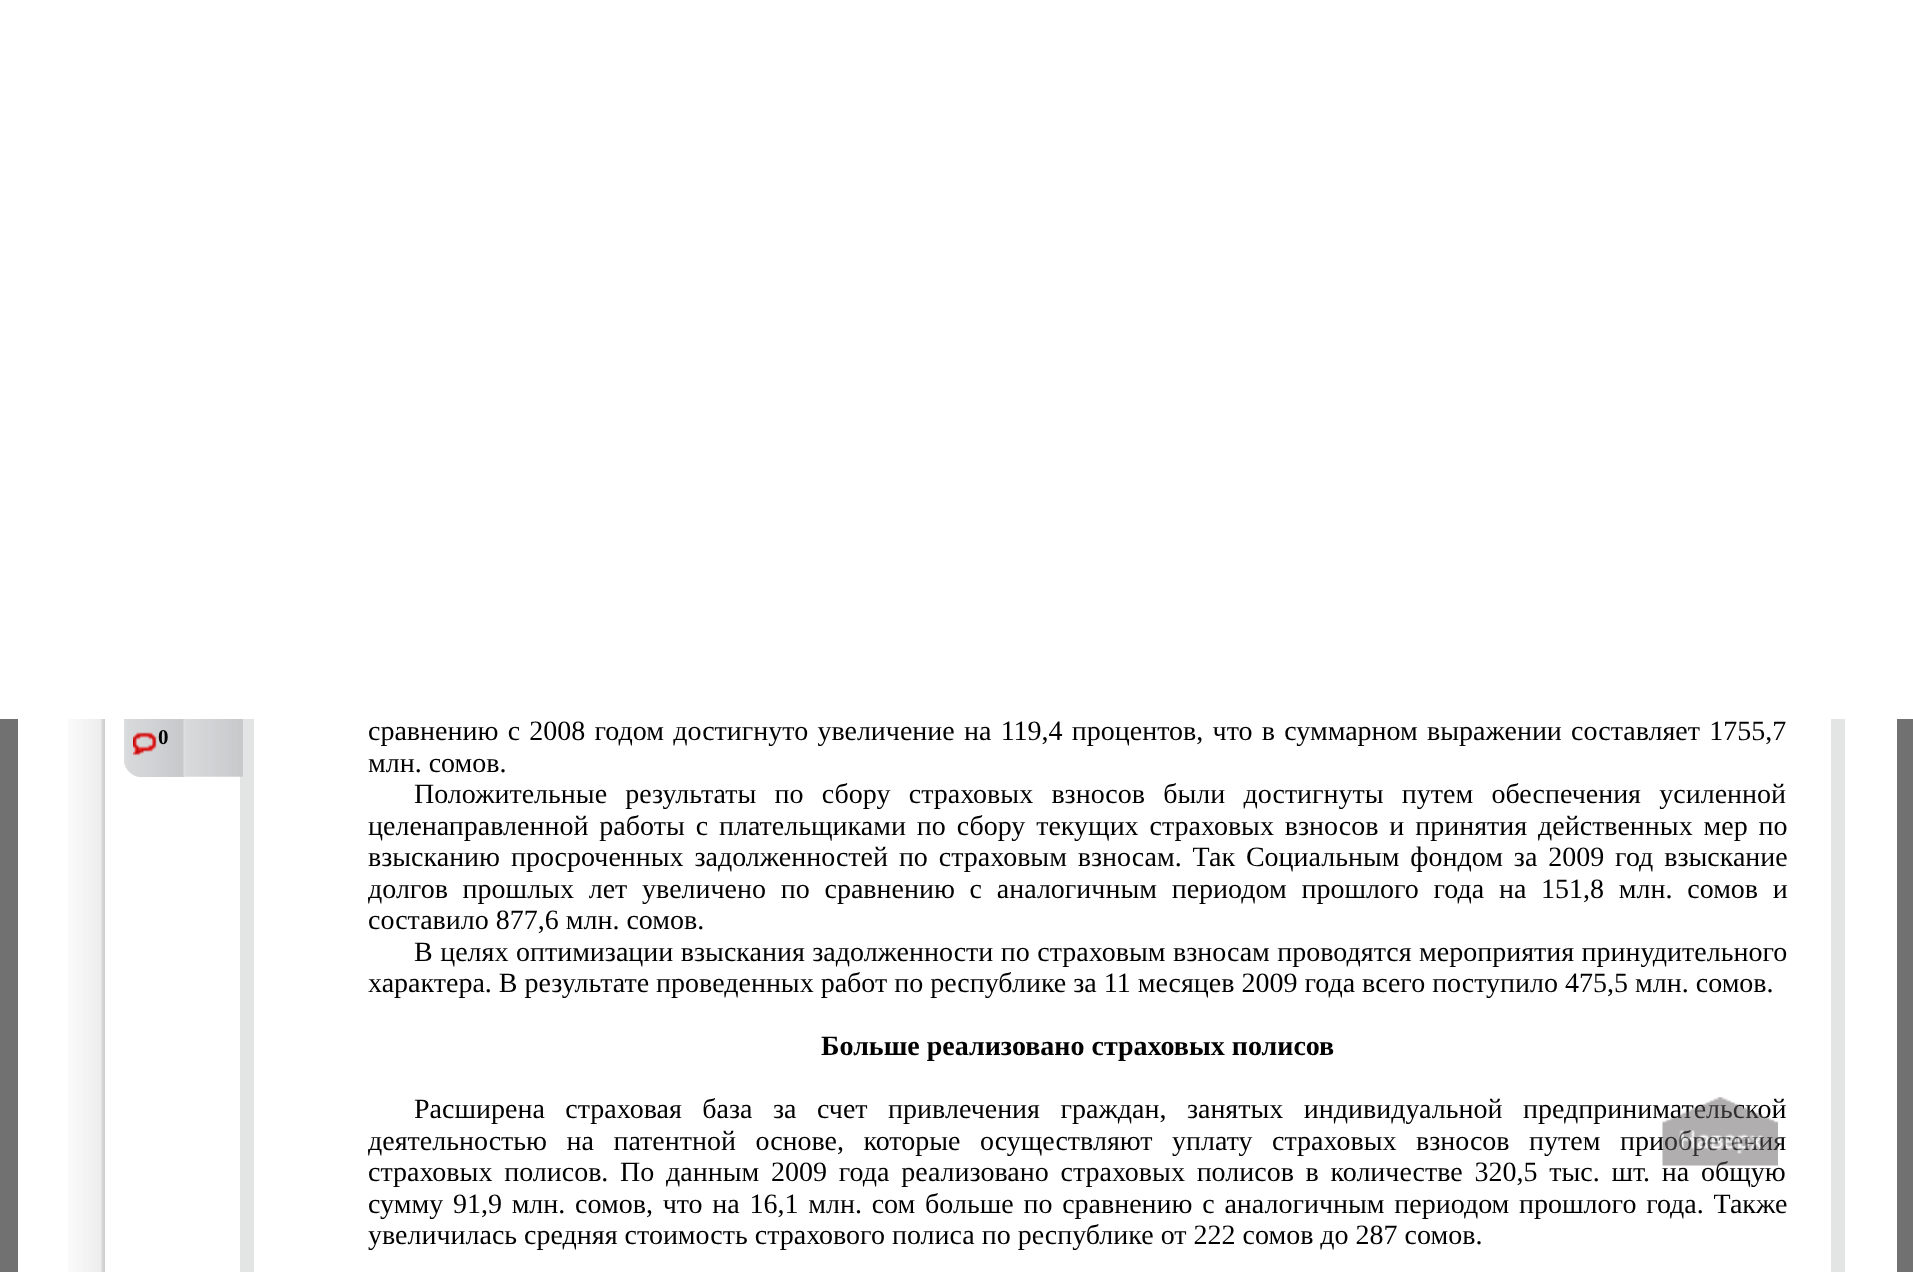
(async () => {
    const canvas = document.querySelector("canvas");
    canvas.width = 1913;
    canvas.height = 1272;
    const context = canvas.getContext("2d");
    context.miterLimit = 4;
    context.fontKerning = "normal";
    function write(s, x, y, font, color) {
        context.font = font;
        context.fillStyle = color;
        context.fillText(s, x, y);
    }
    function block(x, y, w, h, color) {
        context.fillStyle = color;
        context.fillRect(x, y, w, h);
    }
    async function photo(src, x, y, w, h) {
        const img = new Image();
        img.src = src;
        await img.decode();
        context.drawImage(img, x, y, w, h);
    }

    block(0, 0, 1913, 1272, "rgb(114, 113, 113)");
    block(18, 719, 1879, 553, "rgb(255, 255, 255)");
    context.fillStyle = "rgb(209, 209, 207)";
    context.beginPath();
    context.roundRect(124, 123, 60, 654, [0, 0, 0, 18]);
    context.fill();
    block(0, 0, 1913, 719, "rgb(255, 255, 255)");
    await photo("media/1.png", 68, 719, 37, 553);
    await photo("media/2.png", 124, 719, 59, 58);
    await photo("media/3.png", 133, 732, 24, 24);
    write("0", 158, 744, "bold 21px Liberation Serif", "rgb(0, 0, 0)");
    block(240, 719, 14, 553, "rgb(227, 229, 228)");
    await photo("media/4.png", 183, 719, 60, 58);
    block(1831, 719, 14, 553, "rgb(227, 229, 228)");
    context.wordSpacing = "2.25px";
    write("сравнению с 2008 годом достигнуто увеличение на 119,4 процентов, что в суммарном выражении составляет 1755,7", 368, 740, "28px Liberation Serif", "rgb(0, 0, 0)");
    context.wordSpacing = "0px";
    write("млн. сомов.", 368, 772, "28px Liberation Serif", "rgb(0, 0, 0)");
    context.wordSpacing = "11.25px";
    write("Положительные результаты по сбору страховых взносов были достигнуты путем обеспечения усиленной", 414, 803, "28px Liberation Serif", "rgb(0, 0, 0)");
    context.wordSpacing = "3.9px";
    write("целенаправленной работы с плательщиками по сбору текущих страховых взносов и принятия действенных мер по", 368, 835, "28px Liberation Serif", "rgb(0, 0, 0)");
    write("взысканию просроченных задолженностей по страховым взносам. Так Социальным фондом за 2009 год взыскание", 368, 866, "28px Liberation Serif", "rgb(0, 0, 0)");
    context.wordSpacing = "7.75px";
    write("долгов прошлых лет увеличено по сравнению с аналогичным периодом прошлого года на 151,8 млн. сомов и", 368, 898, "28px Liberation Serif", "rgb(0, 0, 0)");
    context.wordSpacing = "0px";
    write("составило 877,6 млн. сомов.", 368, 929, "28px Liberation Serif", "rgb(0, 0, 0)");
    context.wordSpacing = "0.5px";
    write("В целях оптимизации взыскания задолженности по страховым взносам проводятся мероприятия принудительного", 414, 961, "28px Liberation Serif", "rgb(0, 0, 0)");
    context.wordSpacing = "0px";
    write("характера. В результате проведенных работ по республике за 11 месяцев 2009 года всего поступило 475,5 млн. сомов.", 368, 992, "28px Liberation Serif", "rgb(0, 0, 0)");
    write("Больше реализовано страховых полисов", 821, 1055, "bold 28px Liberation Serif", "rgb(0, 0, 0)");
    context.wordSpacing = "13.5px";
    write("Расширена страховая база за счет привлечения граждан, занятых индивидуальной предпринимательской", 414, 1118, "28px Liberation Serif", "rgb(0, 0, 0)");
    context.wordSpacing = "12.5px";
    write("деятельностью на патентной основе, которые осуществляют уплату страховых взносов путем приобретения", 368, 1150, "28px Liberation Serif", "rgb(0, 0, 0)");
    context.wordSpacing = "4.75px";
    write("страховых полисов. По данным 2009 года реализовано страховых полисов в количестве 320,5 тыс. шт. на общую", 368, 1181, "28px Liberation Serif", "rgb(0, 0, 0)");
    context.wordSpacing = "2.75px";
    write("сумму 91,9 млн. сомов, что на 16,1 млн. сом больше по сравнению с аналогичным периодом прошлого года. Также", 368, 1213, "28px Liberation Serif", "rgb(0, 0, 0)");
    context.wordSpacing = "0px";
    write("увеличилась средняя стоимость страхового полиса по республике от 222 сомов до 287 сомов.", 368, 1244, "28px Liberation Serif", "rgb(0, 0, 0)");
    await photo("media/5.png", 1662, 1097, 116, 69);
})();
